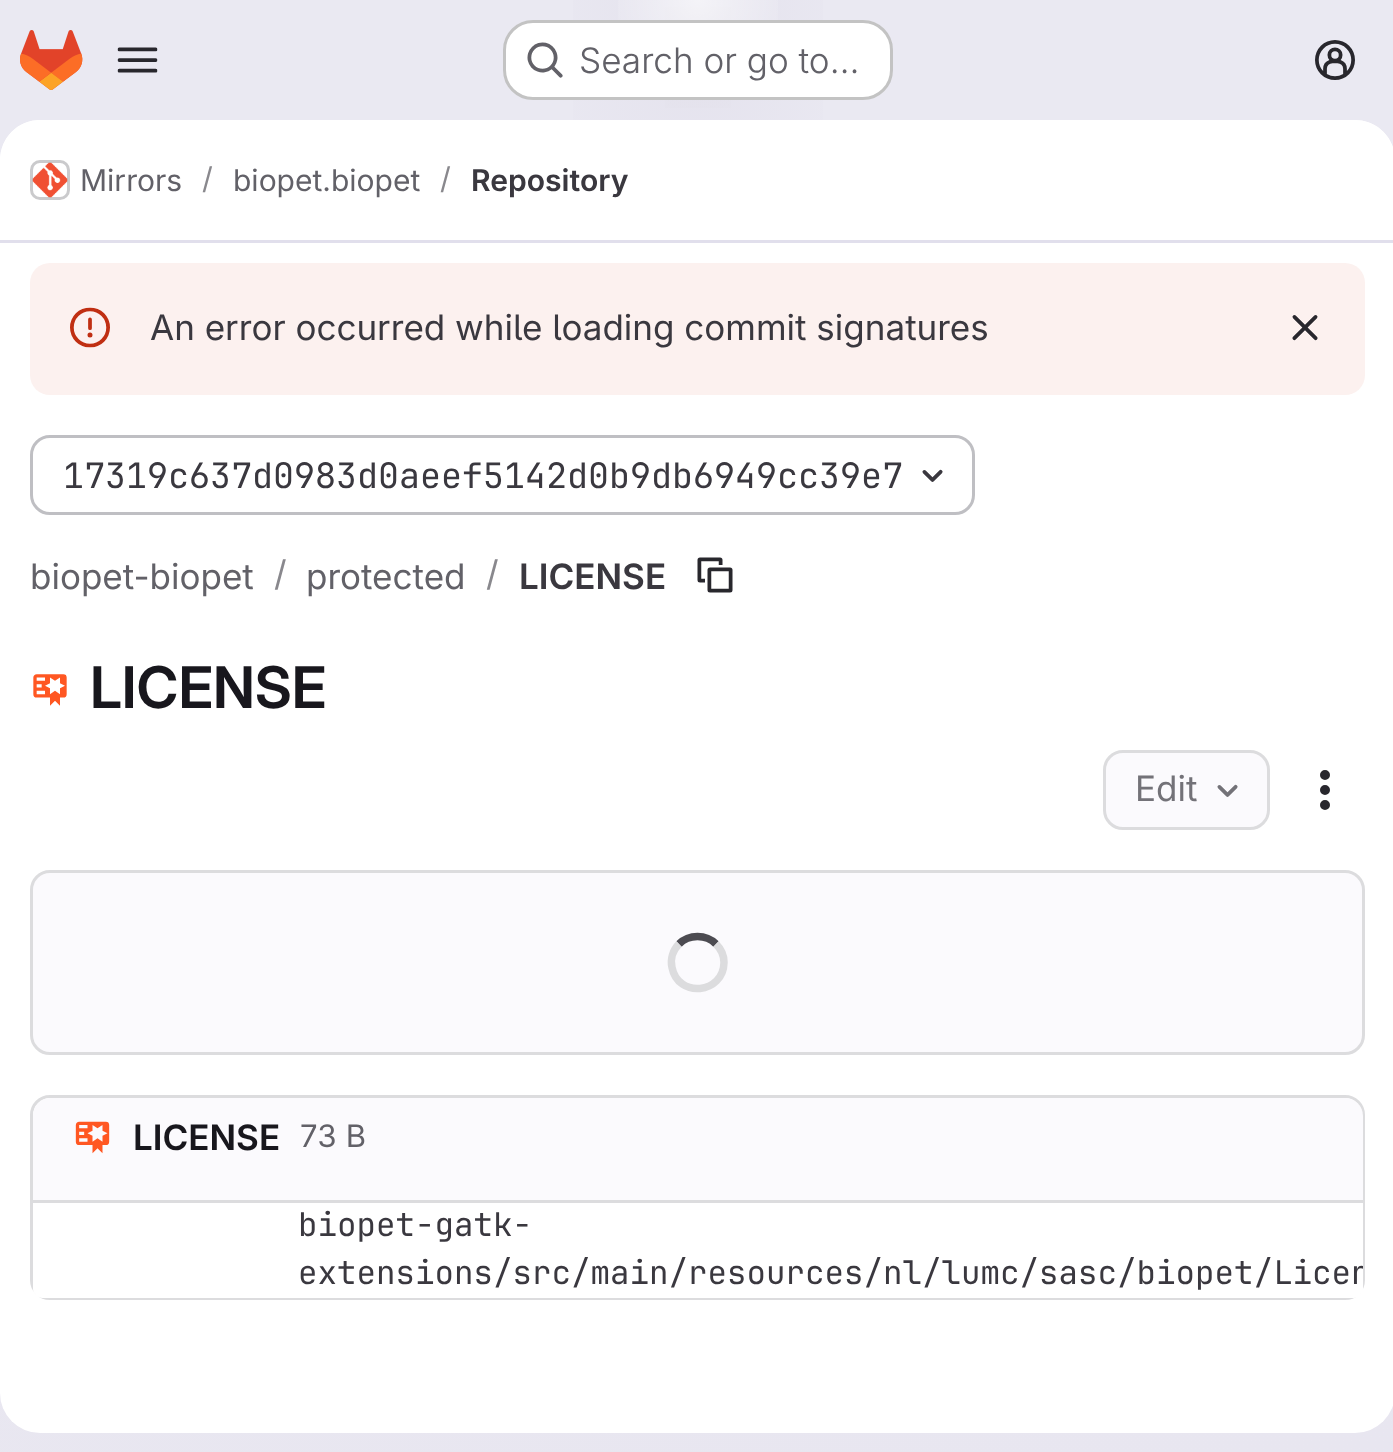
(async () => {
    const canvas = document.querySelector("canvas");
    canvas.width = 1393;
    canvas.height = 1452;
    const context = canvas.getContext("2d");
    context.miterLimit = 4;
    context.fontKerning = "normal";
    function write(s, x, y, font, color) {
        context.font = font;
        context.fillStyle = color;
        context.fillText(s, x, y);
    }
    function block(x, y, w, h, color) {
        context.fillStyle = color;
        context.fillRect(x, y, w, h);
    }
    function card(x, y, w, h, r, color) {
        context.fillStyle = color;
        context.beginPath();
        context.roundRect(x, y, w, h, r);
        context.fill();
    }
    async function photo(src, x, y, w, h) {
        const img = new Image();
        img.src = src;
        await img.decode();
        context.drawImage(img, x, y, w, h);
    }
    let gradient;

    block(0, 0, 1393, 1452, "rgb(255, 255, 255)");
    gradient = context.createLinearGradient(843, 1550, 552, -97);
    gradient.addColorStop(0, "rgb(232, 230, 240)");
    gradient.addColorStop(0.7, "rgb(234, 233, 242)");
    context.fillStyle = gradient;
    context.fillRect(0, 0, 1393, 1452);
    gradient = context.createRadialGradient(698, 0, 0, 698, 0, 698);
    gradient.addColorStop(0, "rgb(228, 226, 237)");
    gradient.addColorStop(0.25, "rgba(228, 226, 237, 0)");
    context.fillStyle = gradient;
    context.beginPath();
    context.rect(573, 0, 250, 120);
    context.save();
    context.clip();
    context.scale(1, 1453 / 698);
    context.fillRect(0, 0, 1393, 698);
    context.restore();
    gradient = context.createRadialGradient(698, 0, 0, 698, 0, 698);
    gradient.addColorStop(0, "rgb(228, 226, 236)");
    gradient.addColorStop(0.18, "rgba(228, 226, 236, 0)");
    context.fillStyle = gradient;
    context.beginPath();
    context.rect(665, 7, 66, 101);
    context.save();
    context.clip();
    context.scale(1, 1453 / 698);
    context.fillRect(0, 0, 1393, 698);
    context.restore();
    gradient = context.createRadialGradient(698, 0, 0, 698, 0, 1611);
    gradient.addColorStop(0, "rgba(255, 255, 255, 0.6)");
    gradient.addColorStop(0.06, "rgba(255, 255, 255, 0)");
    context.fillStyle = gradient;
    context.fillRect(618, 0, 160, 20);
    await photo("media/1.png", 20, 30, 63, 60);
    await photo("media/2.png", 117, 47, 41, 26);
    card(503, 20, 390, 80, 30, "rgb(255, 255, 255)");
    context.beginPath();
    context.roundRect(504.5, 21.5, 387, 77, 28.5);
    context.strokeStyle = "rgba(5, 5, 6, 0.24)";
    context.lineWidth = 3;
    context.stroke();
    await photo("media/3.png", 527, 42, 36, 36);
    write("Search or go to…", 579, 73, "300 35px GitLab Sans", "rgb(98, 97, 104)");
    await photo("media/4.png", 1315, 40, 40, 40);
    card(0, 120, 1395, 1313, 40, "rgb(255, 255, 255)");
    context.beginPath();
    context.moveTo(40, 120);
    context.lineTo(1355, 120);
    context.bezierCurveTo(1377, 120, 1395, 138, 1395, 160);
    context.lineTo(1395, 243);
    context.lineTo(0, 243);
    context.lineTo(0, 160);
    context.bezierCurveTo(0, 138, 18, 120, 40, 120);
    context.closePath();
    context.fill();
    block(0, 240, 1393, 3, "rgb(225, 223, 236)");
    context.beginPath();
    context.roundRect(31.5, 161.5, 37, 37, 8.5);
    context.strokeStyle = "rgb(220, 220, 222)";
    context.stroke();
    await photo("media/5.png", 32, 162, 36, 36);
    context.beginPath();
    context.roundRect(31.5, 161.5, 37, 37, 8.5);
    context.strokeStyle = "rgba(5, 5, 6, 0.08)";
    context.stroke();
    write("Mirrors", 80, 191, "30px GitLab Sans", "rgb(98, 97, 104)");
    write("/", 202, 189, "30px GitLab Sans", "rgb(137, 136, 141)");
    write("biopet.biopet", 233, 191, "30px GitLab Sans", "rgb(98, 97, 104)");
    write("/", 440, 189, "30px GitLab Sans", "rgb(137, 136, 141)");
    write("Repository", 471, 191, "600 30px 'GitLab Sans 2'", "rgb(58, 56, 63)");
    card(30, 263, 1335, 132, 20, "rgb(252, 241, 239)");
    await photo("media/6.png", 70, 307, 40, 41);
    write("An error occurred while loading commit signatures", 150, 340, "35px GitLab Sans", "rgb(58, 56, 63)");
    await photo("media/7.png", 1292, 315, 26, 26);
    context.beginPath();
    context.roundRect(31.5, 436.5, 942, 77, 18.5);
    context.strokeStyle = "rgb(191, 191, 195)";
    context.stroke();
    write("17319c637d0983d0aeef5142d0b9db6949cc39e7", 63, 488, "35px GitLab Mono", "rgb(58, 56, 63)");
    await photo("media/8.png", 922, 469, 21, 13);
    write("biopet-biopet", 30, 589, "35px GitLab Sans", "rgb(98, 97, 104)");
    write("/", 274, 586, "35px GitLab Sans", "rgb(137, 136, 141)");
    write("protected", 306, 589, "35px GitLab Sans", "rgb(98, 97, 104)");
    write("/", 486, 586, "35px GitLab Sans", "rgb(137, 136, 141)");
    write("LICENSE", 519, 589, "600 35px 'GitLab Sans 2'", "rgb(58, 56, 63)");
    await photo("media/9.png", 697, 557, 36, 36);
    await photo("media/10.png", 33, 674, 34, 32);
    write("LICENSE", 90, 708, "600 57.5px GitLab Sans", "rgb(24, 23, 29)");
    context.fillStyle = "rgb(251, 250, 253)";
    context.beginPath();
    context.roundRect(1104.5, 751.5, 164, 77, 18.5);
    context.fill();
    context.strokeStyle = "rgb(220, 220, 222)";
    context.stroke();
    write("Edit", 1135, 801, "35px GitLab Sans", "rgb(115, 114, 120)");
    await photo("media/11.png", 1217, 784, 21, 13);
    await photo("media/12.png", 1320, 770, 10, 40);
    context.fillStyle = "rgb(251, 250, 253)";
    context.beginPath();
    context.roundRect(31.5, 871.5, 1332, 182, 18.5);
    context.fill();
    context.stroke();
    context.beginPath();
    context.moveTo(679, 944);
    context.bezierCurveTo(689, 934, 706, 934, 716, 944);
    context.strokeStyle = "rgb(76, 75, 81)";
    context.lineWidth = 7.5;
    context.stroke();
    context.beginPath();
    context.moveTo(716, 944);
    context.bezierCurveTo(721, 949, 724, 955.5, 724, 962.5);
    context.bezierCurveTo(723.5, 994, 678, 998.5, 672, 967.5);
    context.bezierCurveTo(670, 959, 673, 950, 679, 944);
    context.strokeStyle = "rgb(220, 220, 222)";
    context.stroke();
    context.beginPath();
    context.roundRect(31.5, 1096.5, 1332, 202, 18.5);
    context.lineWidth = 3;
    context.stroke();
    context.beginPath();
    context.roundRect(33, 1098, 1330, 105, [18, 18, 0, 0]);
    context.fill();
    block(33, 1200, 1330, 3, "rgb(220, 220, 222)");
    await photo("media/13.png", 75, 1121, 35, 33);
    write("LICENSE", 133, 1150, "600 35px 'GitLab Sans 2'", "rgb(24, 23, 29)");
    write("73 B", 300, 1147, "31px GitLab Sans", "rgb(98, 97, 104)");
    context.fillStyle = "rgb(255, 255, 255)";
    context.beginPath();
    context.roundRect(33, 1203, 1330, 95, [0, 0, 10, 10]);
    context.fill();
    context.beginPath();
    context.roundRect(33, 1203, 240, 95, [0, 0, 0, 10]);
    context.fill();
    context.beginPath();
    context.roundRect(293, 1203, 1070, 95, [0, 0, 10, 0]);
    context.fill();
    write("biopet-gatk-", 298, 1236, "32.5px GitLab Mono", "rgb(58, 56, 63)");
    context.save();
    context.beginPath();
    context.roundRect(33, 1203, 1330, 95, [0, 0, 10, 10]);
    context.clip();
    write("extensions/src/main/resources/nl/lumc/sasc/biopet/Licen", 298, 1284, "32.5px GitLab Mono", "rgb(58, 56, 63)");
    context.restore();
})();
